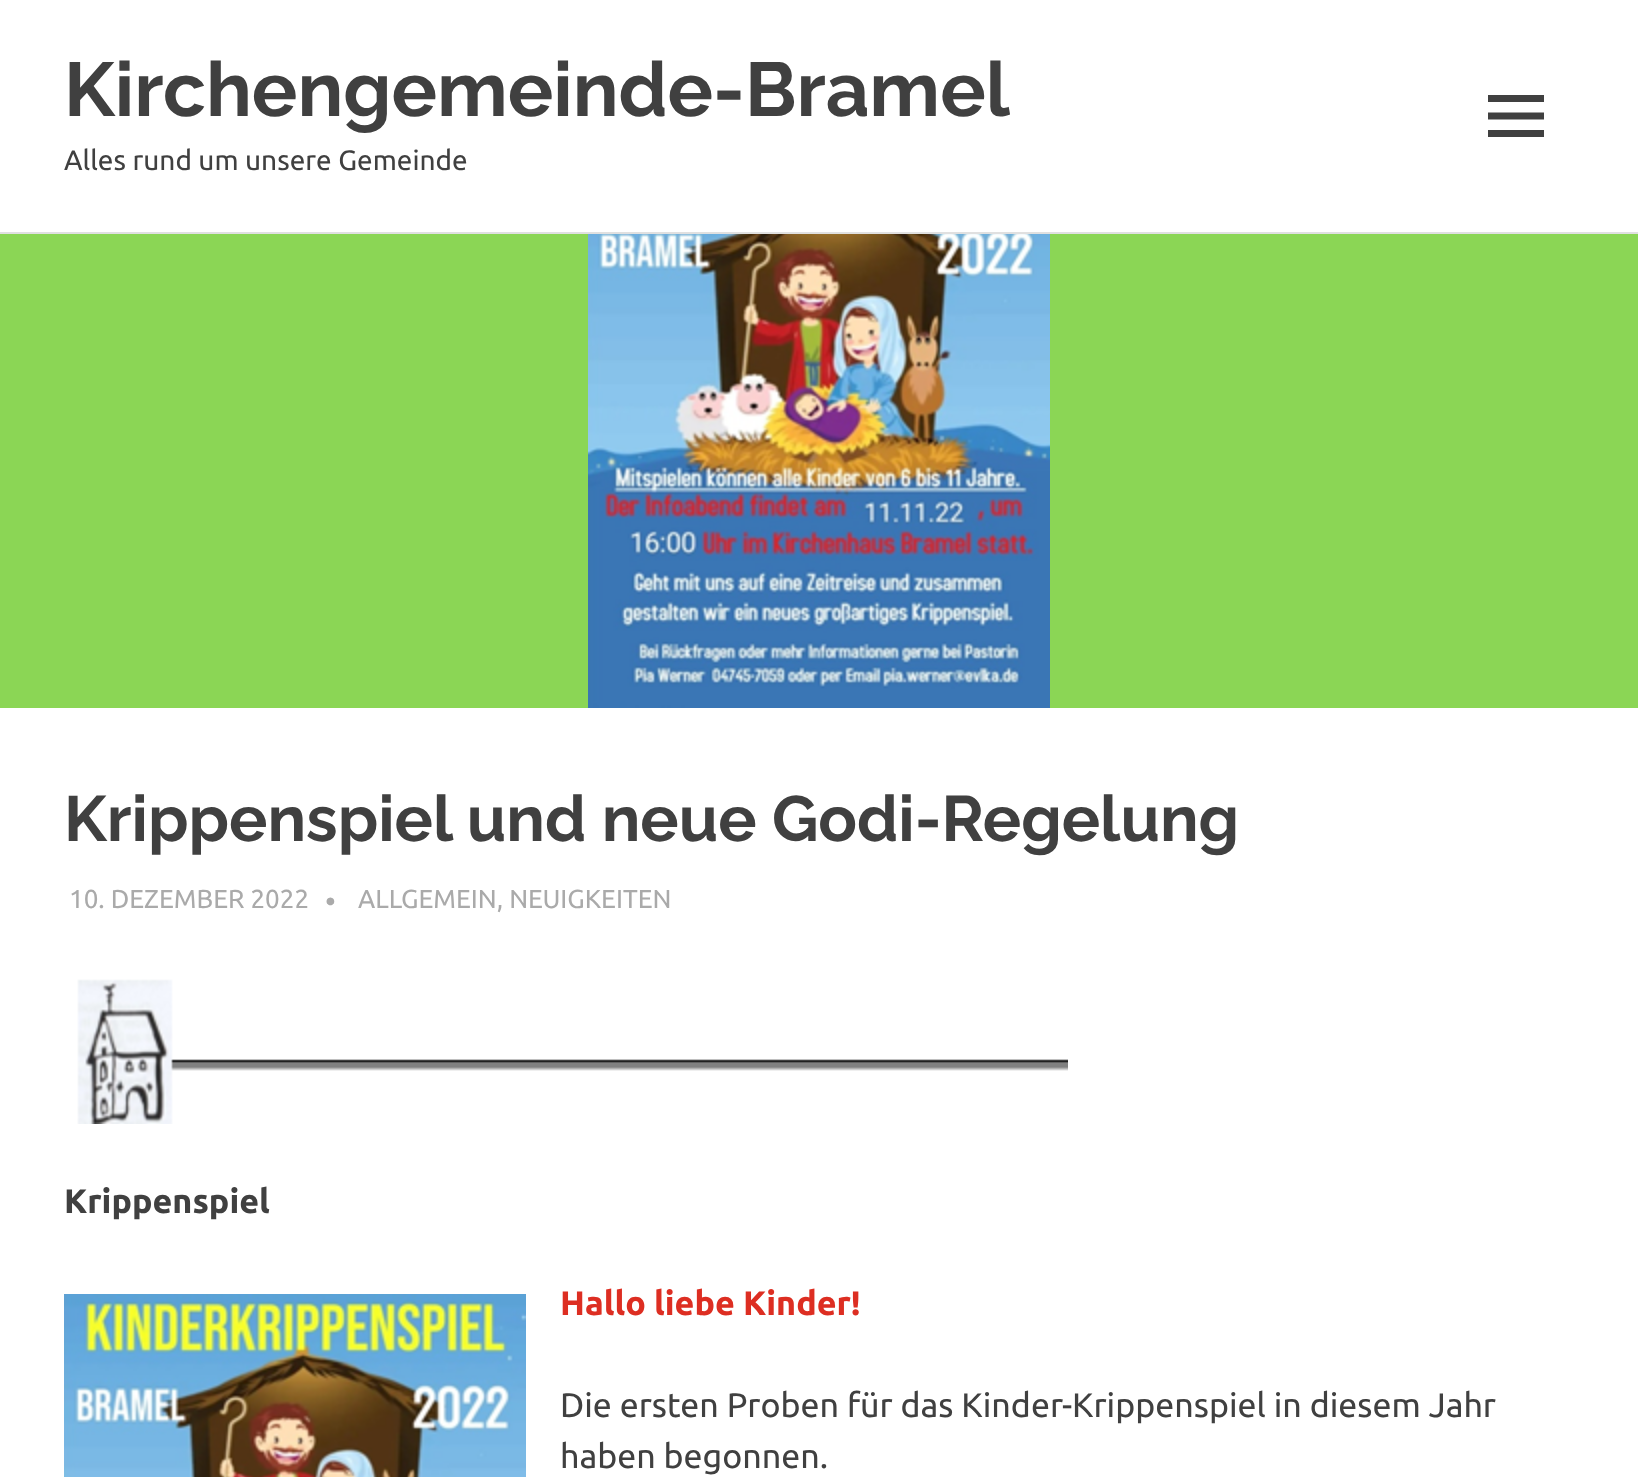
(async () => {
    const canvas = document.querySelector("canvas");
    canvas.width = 1638;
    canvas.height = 1477;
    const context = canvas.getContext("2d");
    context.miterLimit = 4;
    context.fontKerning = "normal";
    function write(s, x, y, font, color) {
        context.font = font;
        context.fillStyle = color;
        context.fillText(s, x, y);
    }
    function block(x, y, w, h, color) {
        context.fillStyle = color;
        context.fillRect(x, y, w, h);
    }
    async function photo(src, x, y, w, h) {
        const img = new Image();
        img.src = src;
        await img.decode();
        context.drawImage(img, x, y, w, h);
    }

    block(0, 0, 1638, 1477, "rgb(139, 214, 85)");
    block(0, 0, 1638, 232, "rgb(255, 255, 255)");
    block(0, 232, 1638, 2, "rgb(224, 224, 224)");
    write("Kirchengemeinde-Bramel", 64, 116, "100 76px Raleway", "rgb(64, 64, 64)");
    write("Alles rund um unsere Gemeinde", 64, 170, "28px Ubuntu", "rgb(64, 64, 64)");
    await photo("media/1.png", 1488, 95, 56, 42);
    await photo("media/2.png", 588, 234, 462, 474);
    block(0, 708, 1638, 769, "rgb(255, 255, 255)");
    write("Krippenspiel und neue Godi-Regelung", 64, 841, "100 64px Raleway", "rgb(64, 64, 64)");
    write("10. DEZEMBER 2022", 69, 908, "26px Ubuntu", "rgb(170, 170, 170)");
    write("•", 325, 912, "30px Ubuntu", "rgb(170, 170, 170)");
    write("ALLGEMEIN, NEUIGKEITEN", 358, 908, "26px Ubuntu", "rgb(170, 170, 170)");
    await photo("media/3.png", 77, 979, 991, 145);
    write("Krippenspiel", 64, 1213, "bold 34px Ubuntu", "rgb(64, 64, 64)");
    await photo("media/4.png", 64, 1294, 462, 183);
    write("Hallo liebe Kinder!", 560, 1315, "bold 34px Ubuntu", "rgb(221, 46, 34)");
    write("Die ersten Proben für das Kinder-Krippenspiel in diesem Jahr", 560, 1417, "34px Ubuntu", "rgb(64, 64, 64)");
    write("haben begonnen.", 560, 1468, "34px Ubuntu", "rgb(64, 64, 64)");
})();
